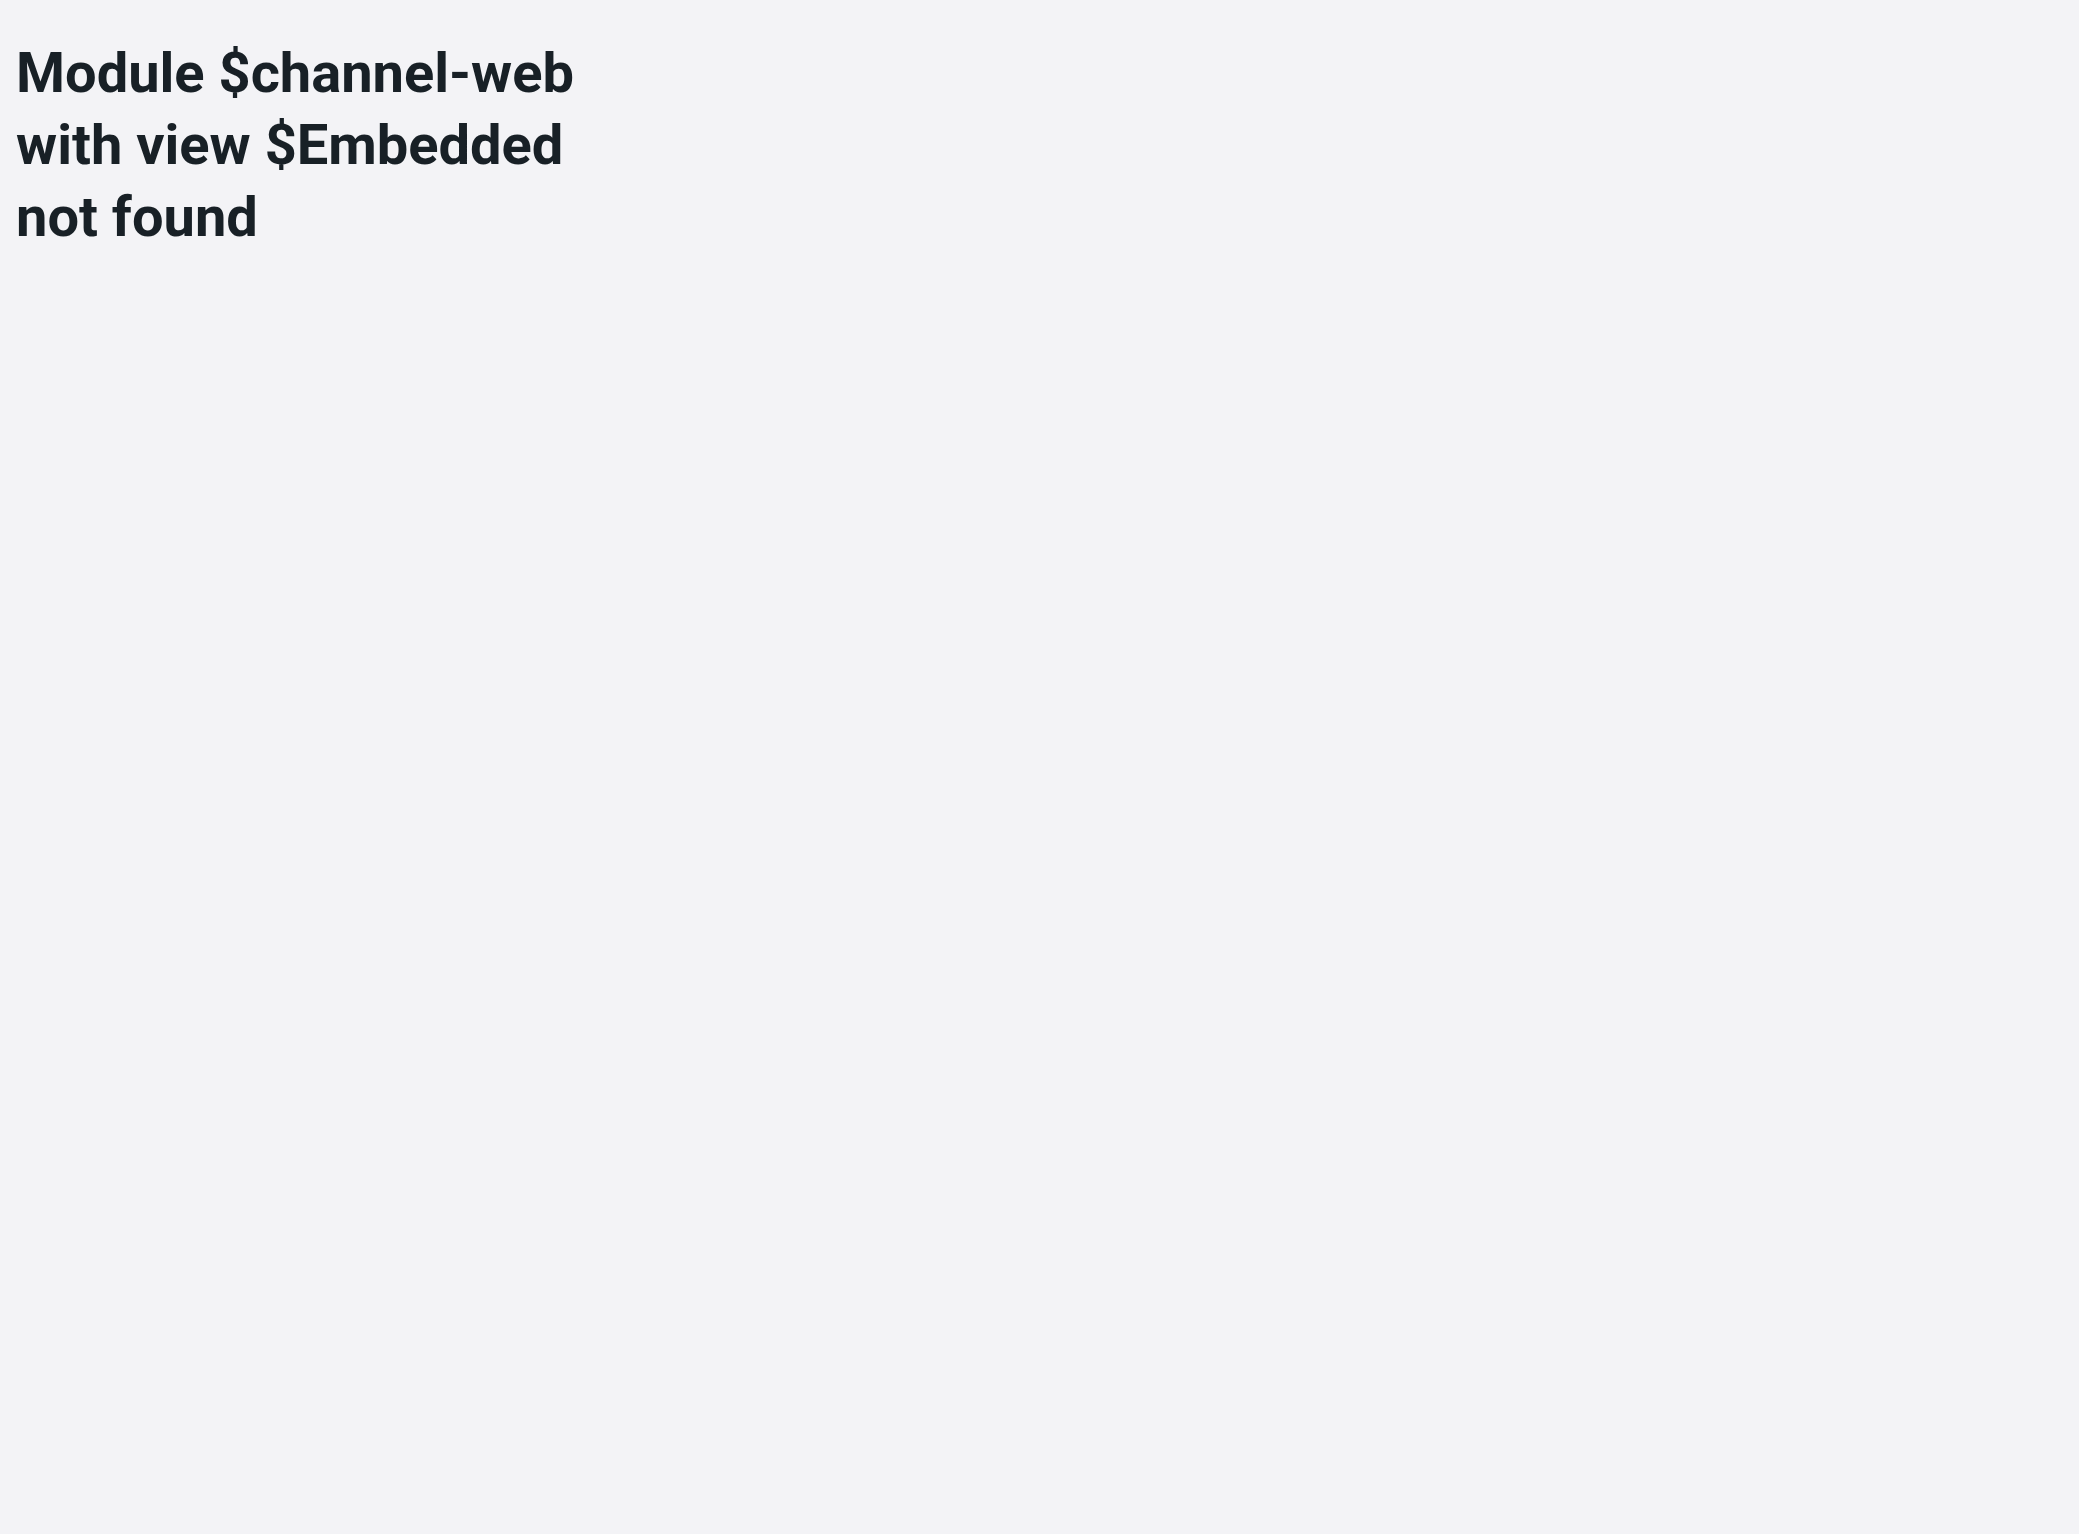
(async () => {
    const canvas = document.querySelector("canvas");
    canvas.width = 2079;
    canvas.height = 1534;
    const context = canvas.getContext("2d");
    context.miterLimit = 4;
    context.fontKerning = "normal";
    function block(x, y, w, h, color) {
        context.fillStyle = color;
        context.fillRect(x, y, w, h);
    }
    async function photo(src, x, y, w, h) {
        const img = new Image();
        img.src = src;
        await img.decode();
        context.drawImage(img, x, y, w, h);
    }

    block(0, 0, 2079, 1534, "rgb(243, 243, 246)");
    await photo("media/1.png", 16, 46, 557, 191);
})();
